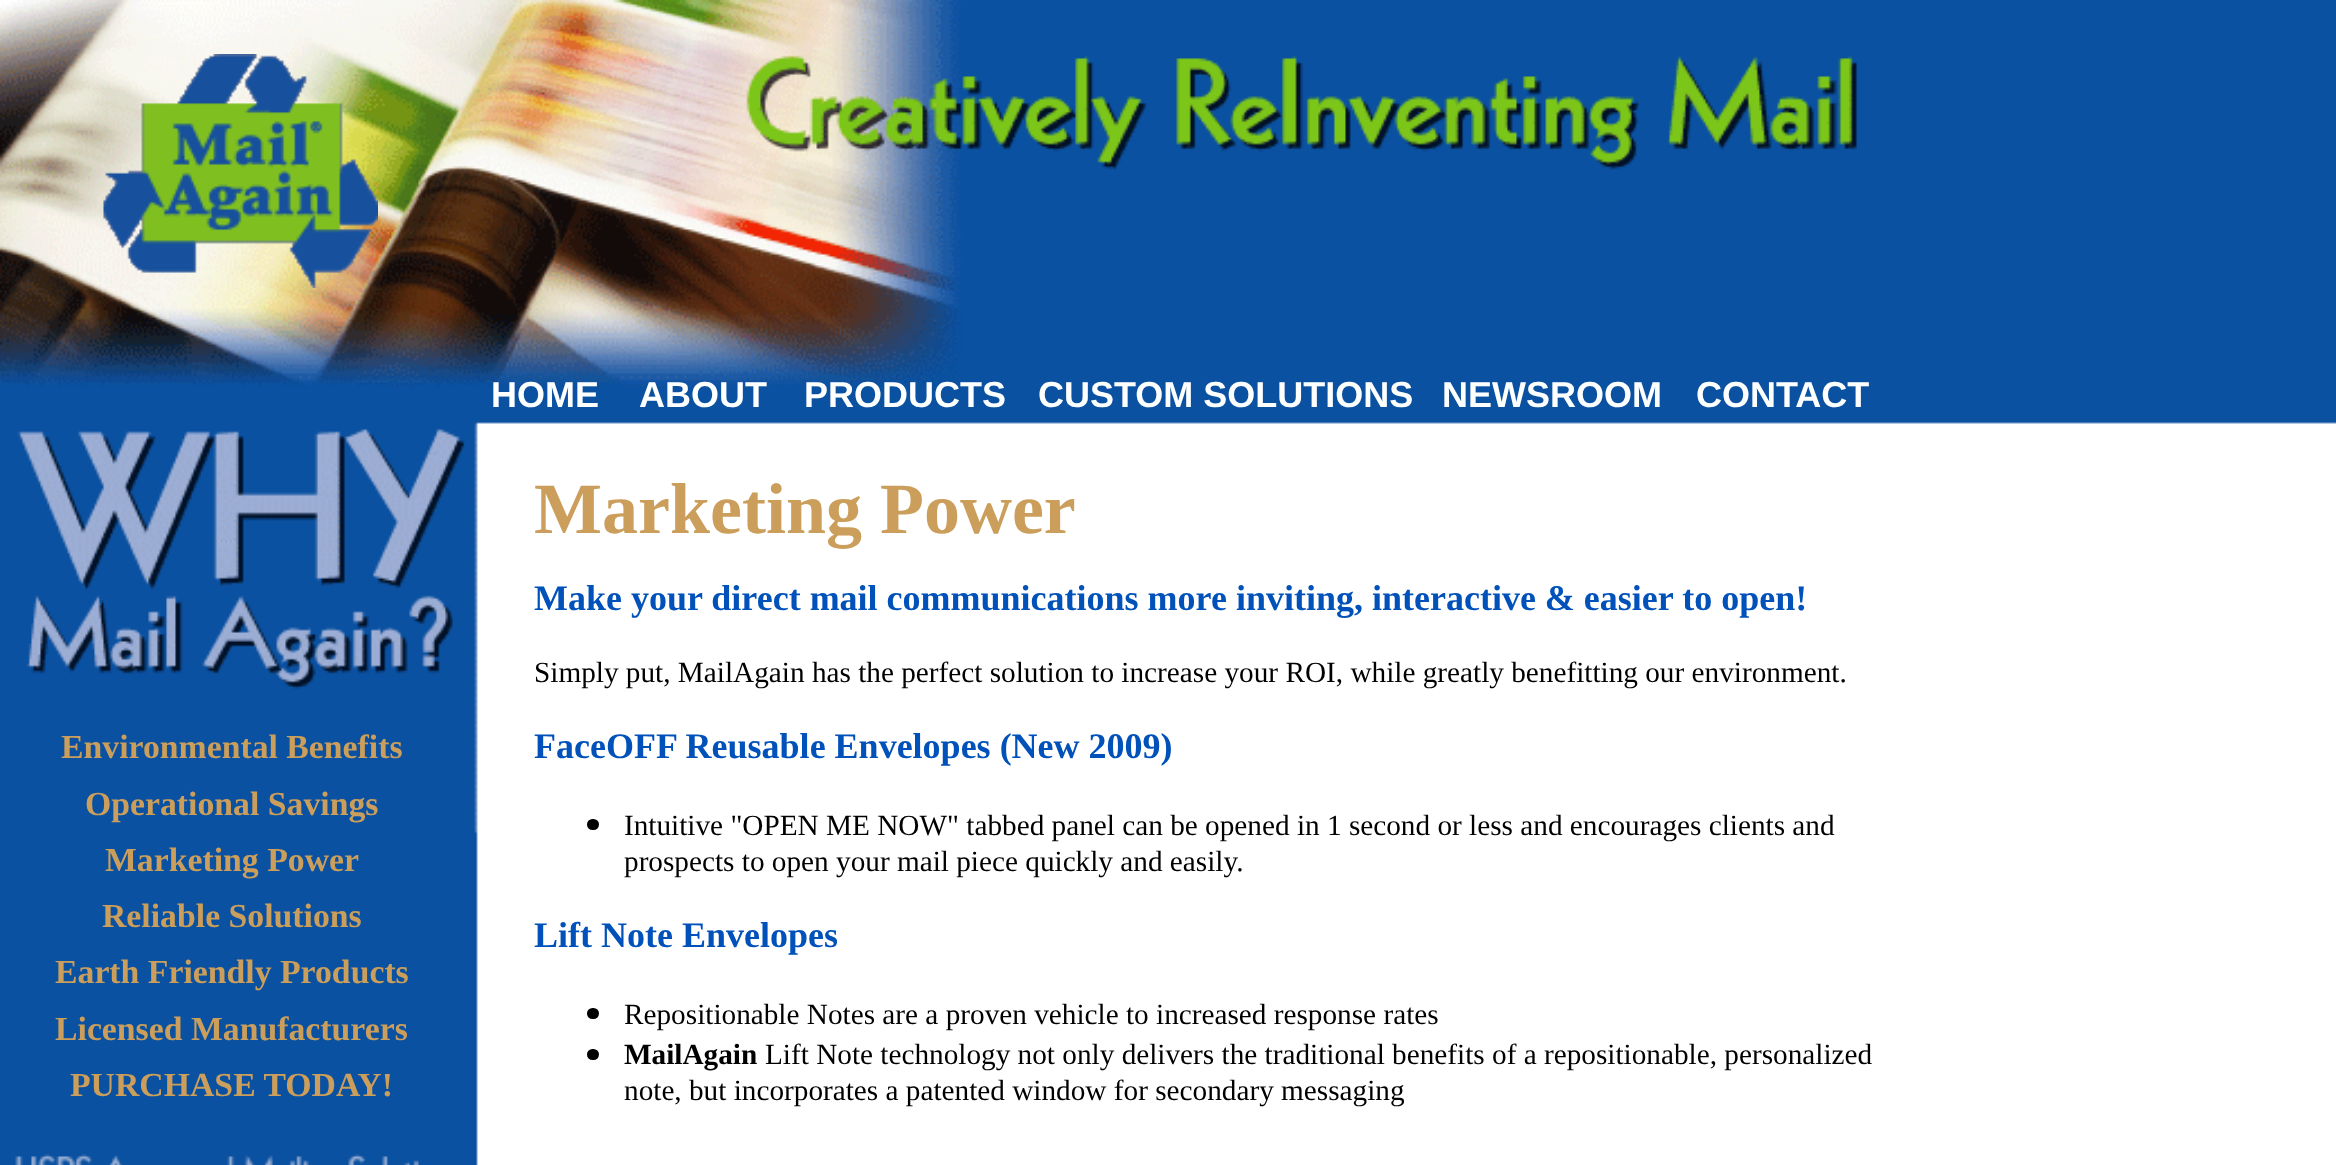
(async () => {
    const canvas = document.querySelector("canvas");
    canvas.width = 2336;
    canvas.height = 1165;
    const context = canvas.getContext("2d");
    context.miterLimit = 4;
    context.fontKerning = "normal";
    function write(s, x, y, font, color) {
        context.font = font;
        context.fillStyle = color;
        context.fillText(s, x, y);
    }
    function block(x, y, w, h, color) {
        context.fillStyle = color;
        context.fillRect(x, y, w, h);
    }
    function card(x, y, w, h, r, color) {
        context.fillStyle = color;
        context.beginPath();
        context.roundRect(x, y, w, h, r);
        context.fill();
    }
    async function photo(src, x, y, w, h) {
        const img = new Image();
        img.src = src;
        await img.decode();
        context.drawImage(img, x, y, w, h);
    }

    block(0, 0, 2336, 1165, "rgb(255, 255, 255)");
    await photo("media/1.png", 0, 0, 2336, 1165);
    await photo("media/2.png", 103, 54, 275, 234);
    write("HOME", 491, 407, "bold 36px Liberation Sans", "rgb(254, 255, 255)");
    write("ABOUT", 639, 407, "bold 36px Liberation Sans", "rgb(254, 255, 255)");
    write("PRODUCTS", 804, 407, "bold 36px Liberation Sans", "rgb(254, 255, 255)");
    write("CUSTOM SOLUTIONS", 1038, 407, "bold 36px Liberation Sans", "rgb(254, 255, 255)");
    write("NEWSROOM", 1442, 407, "bold 36px Liberation Sans", "rgb(254, 255, 255)");
    write("CONTACT", 1696, 407, "bold 36px Liberation Sans", "rgb(254, 255, 255)");
    write("Marketing Power", 534, 533, "bold 72px Liberation Serif", "rgb(203, 159, 91)");
    write("Environmental Benefits", 61, 758, "bold 33.75px Liberation Serif", "rgb(203, 159, 91)");
    write("Operational Savings", 85, 815, "bold 33.75px Liberation Serif", "rgb(203, 159, 91)");
    write("Marketing Power", 105, 871, "bold 33.75px Liberation Serif", "rgb(203, 159, 91)");
    write("Reliable Solutions", 102, 927, "bold 33.75px Liberation Serif", "rgb(203, 159, 91)");
    write("Earth Friendly Products", 55, 983, "bold 33.75px Liberation Serif", "rgb(203, 159, 91)");
    write("Licensed Manufacturers", 55, 1040, "bold 33.75px Liberation Serif", "rgb(203, 159, 91)");
    write("PURCHASE TODAY!", 70, 1096, "bold 33.75px Liberation Serif", "rgb(203, 159, 91)");
    write("Make your direct mail communications more inviting, interactive & easier to open!", 534, 610, "bold 36px Liberation Serif", "rgb(0, 81, 186)");
    write("Simply put, MailAgain has the perfect solution to increase your ROI, while greatly benefitting our environment.", 534, 682, "29.25px Liberation Serif", "rgb(0, 0, 0)");
    write("FaceOFF Reusable Envelopes (New 2009)", 534, 758, "bold 36px Liberation Serif", "rgb(0, 81, 186)");
    card(587, 819, 12, 11, 5.5, "rgb(0, 0, 0)");
    write("Intuitive \"OPEN ME NOW\" tabbed panel can be opened in 1 second or less and encourages clients and", 624, 835, "29.25px Liberation Serif", "rgb(0, 0, 0)");
    write("prospects to open your mail piece quickly and easily.", 624, 871, "29.25px Liberation Serif", "rgb(0, 0, 0)");
    write("Lift Note Envelopes", 534, 947, "bold 36px Liberation Serif", "rgb(0, 81, 186)");
    card(587, 1008, 12, 11, 5.5, "rgb(0, 0, 0)");
    write("Repositionable Notes are a proven vehicle to increased response rates", 624, 1024, "29.25px Liberation Serif", "rgb(0, 0, 0)");
    card(587, 1049, 12, 11, 5.5, "rgb(0, 0, 0)");
    write("MailAgain", 624, 1064, "bold 29.25px Liberation Serif", "rgb(0, 0, 0)");
    write("Lift Note technology not only delivers the traditional benefits of a repositionable, personalized", 765, 1064, "29.25px Liberation Serif", "rgb(0, 0, 0)");
    write("note, but incorporates a patented window for secondary messaging", 624, 1100, "29.25px Liberation Serif", "rgb(0, 0, 0)");
    await photo("media/3.png", 15, 1154, 405, 11);
})();
